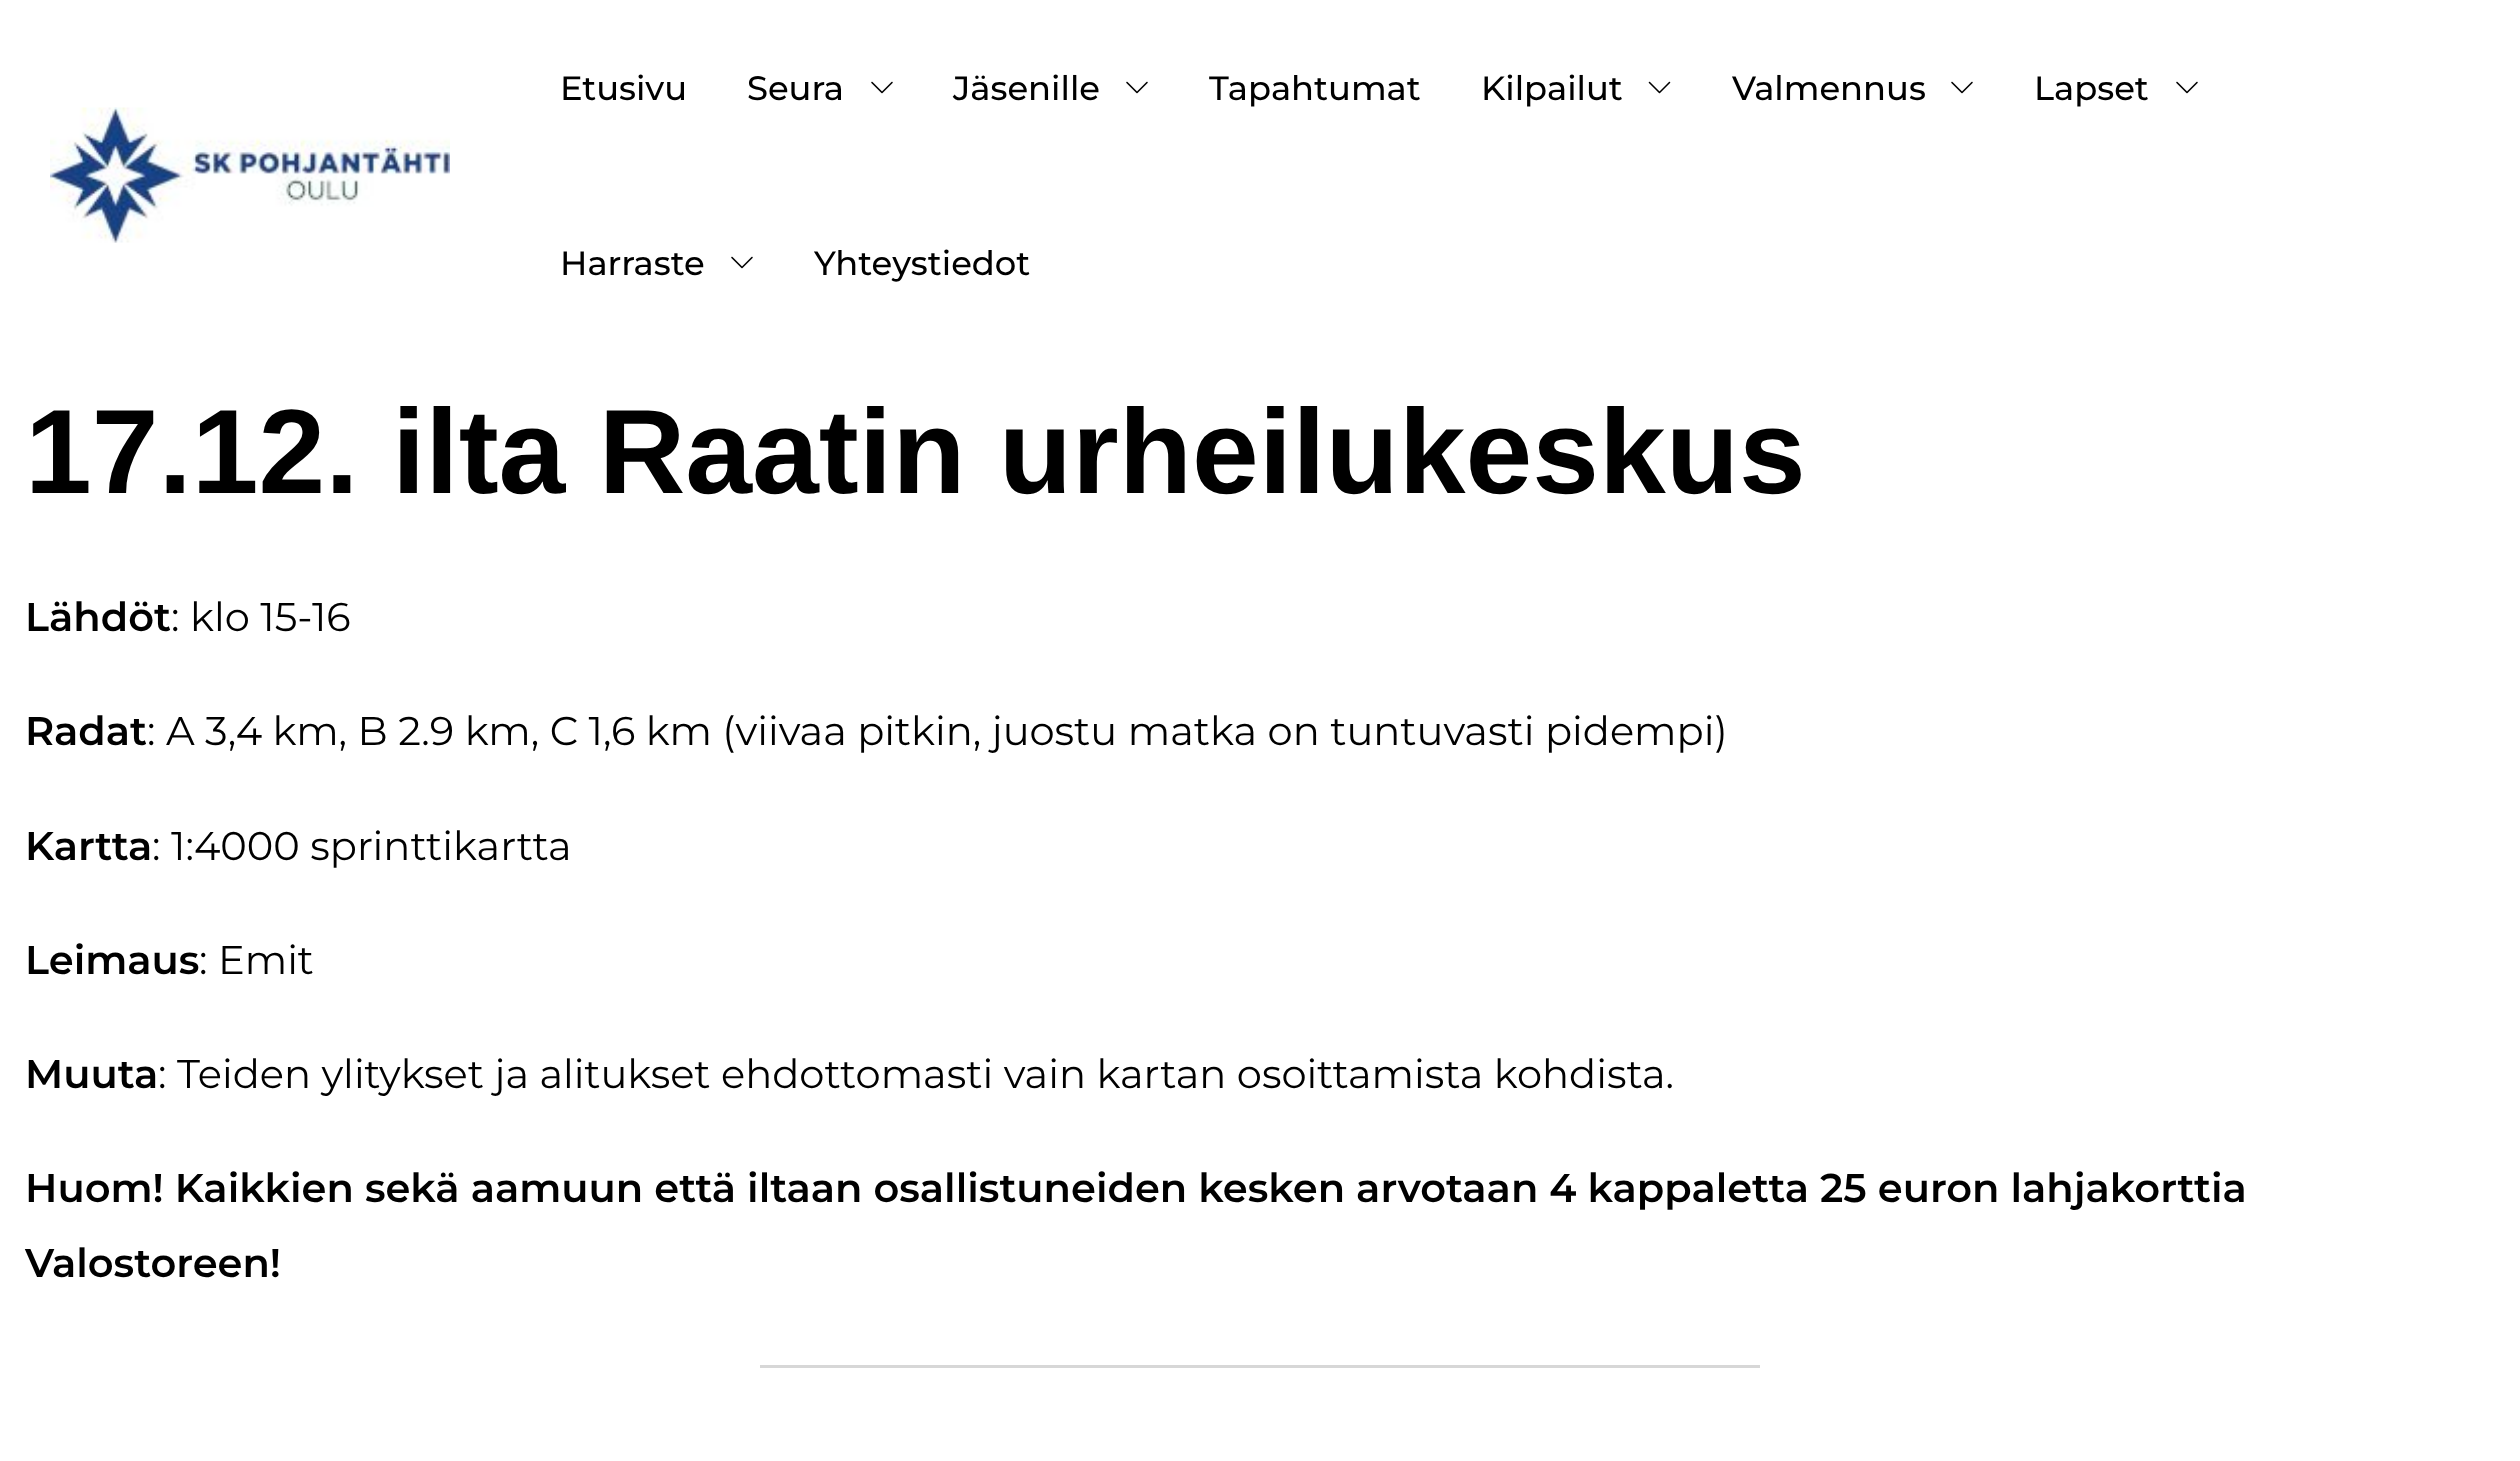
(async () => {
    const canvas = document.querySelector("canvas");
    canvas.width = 2520;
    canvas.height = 1461;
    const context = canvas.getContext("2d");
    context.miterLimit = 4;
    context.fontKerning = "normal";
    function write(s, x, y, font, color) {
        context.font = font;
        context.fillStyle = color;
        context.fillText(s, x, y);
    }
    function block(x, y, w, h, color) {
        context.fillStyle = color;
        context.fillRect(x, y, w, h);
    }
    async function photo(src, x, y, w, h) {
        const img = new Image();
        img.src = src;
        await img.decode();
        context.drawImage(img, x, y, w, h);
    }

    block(0, 0, 2520, 1461, "rgb(255, 255, 255)");
    await photo("media/1.png", 50, 107, 400, 136);
    write("Etusivu", 560, 100, "500 33.75px Montserrat", "rgb(0, 0, 0)");
    write("Seura", 747, 100, "500 33.75px Montserrat", "rgb(0, 0, 0)");
    await photo("media/2.png", 871, 81, 22, 13);
    write("Jäsenille", 953, 100, "500 33.75px Montserrat", "rgb(0, 0, 0)");
    await photo("media/2.png", 1126, 81, 22, 13);
    write("Tapahtumat", 1209, 100, "500 33.75px Montserrat", "rgb(0, 0, 0)");
    write("Kilpailut", 1481, 100, "500 33.75px Montserrat", "rgb(0, 0, 0)");
    await photo("media/3.png", 1648, 81, 23, 13);
    write("Valmennus", 1732, 100, "500 33.75px Montserrat", "rgb(0, 0, 0)");
    await photo("media/2.png", 1951, 81, 22, 13);
    write("Lapset", 2034, 100, "500 33.75px Montserrat", "rgb(0, 0, 0)");
    await photo("media/2.png", 2176, 81, 22, 13);
    write("Harraste", 560, 275, "500 33.75px Montserrat", "rgb(0, 0, 0)");
    await photo("media/2.png", 731, 256, 22, 13);
    write("Yhteystiedot", 814, 275, "500 33.75px Montserrat", "rgb(0, 0, 0)");
    write("17.12. ilta Raatin urheilukeskus", 25, 493, "bold 120px Liberation Sans", "rgb(0, 0, 0)");
    write("Lähdöt", 25, 631, "600 40px Montserrat", "rgb(0, 0, 0)");
    write(": klo 15-16", 171, 631, "40px Montserrat", "rgb(0, 0, 0)");
    write("Radat", 25, 745, "600 40px Montserrat", "rgb(0, 0, 0)");
    write(": A 3,4 km, B 2.9 km, C 1,6 km (viivaa pitkin, juostu matka on tuntuvasti pidempi)", 147, 745, "40px Montserrat", "rgb(0, 0, 0)");
    write("Kartta", 25, 860, "600 40px Montserrat", "rgb(0, 0, 0)");
    write(": 1:4000 sprinttikartta", 152, 860, "40px Montserrat", "rgb(0, 0, 0)");
    write("Leimaus", 25, 974, "600 40px Montserrat", "rgb(0, 0, 0)");
    write(": Emit", 199, 974, "40px Montserrat", "rgb(0, 0, 0)");
    write("Muuta", 25, 1088, "600 40px Montserrat", "rgb(0, 0, 0)");
    write(": Teiden ylitykset ja alitukset ehdottomasti vain kartan osoittamista kohdista.", 158, 1088, "40px Montserrat", "rgb(0, 0, 0)");
    write("Huom! Kaikkien sekä aamuun että iltaan osallistuneiden kesken arvotaan 4 kappaletta 25 euron lahjakorttia", 25, 1202, "600 40px Montserrat", "rgb(0, 0, 0)");
    write("Valostoreen!", 25, 1277, "600 40px Montserrat", "rgb(0, 0, 0)");
    block(760, 1365, 1000, 3, "rgb(215, 215, 215)");
})();
